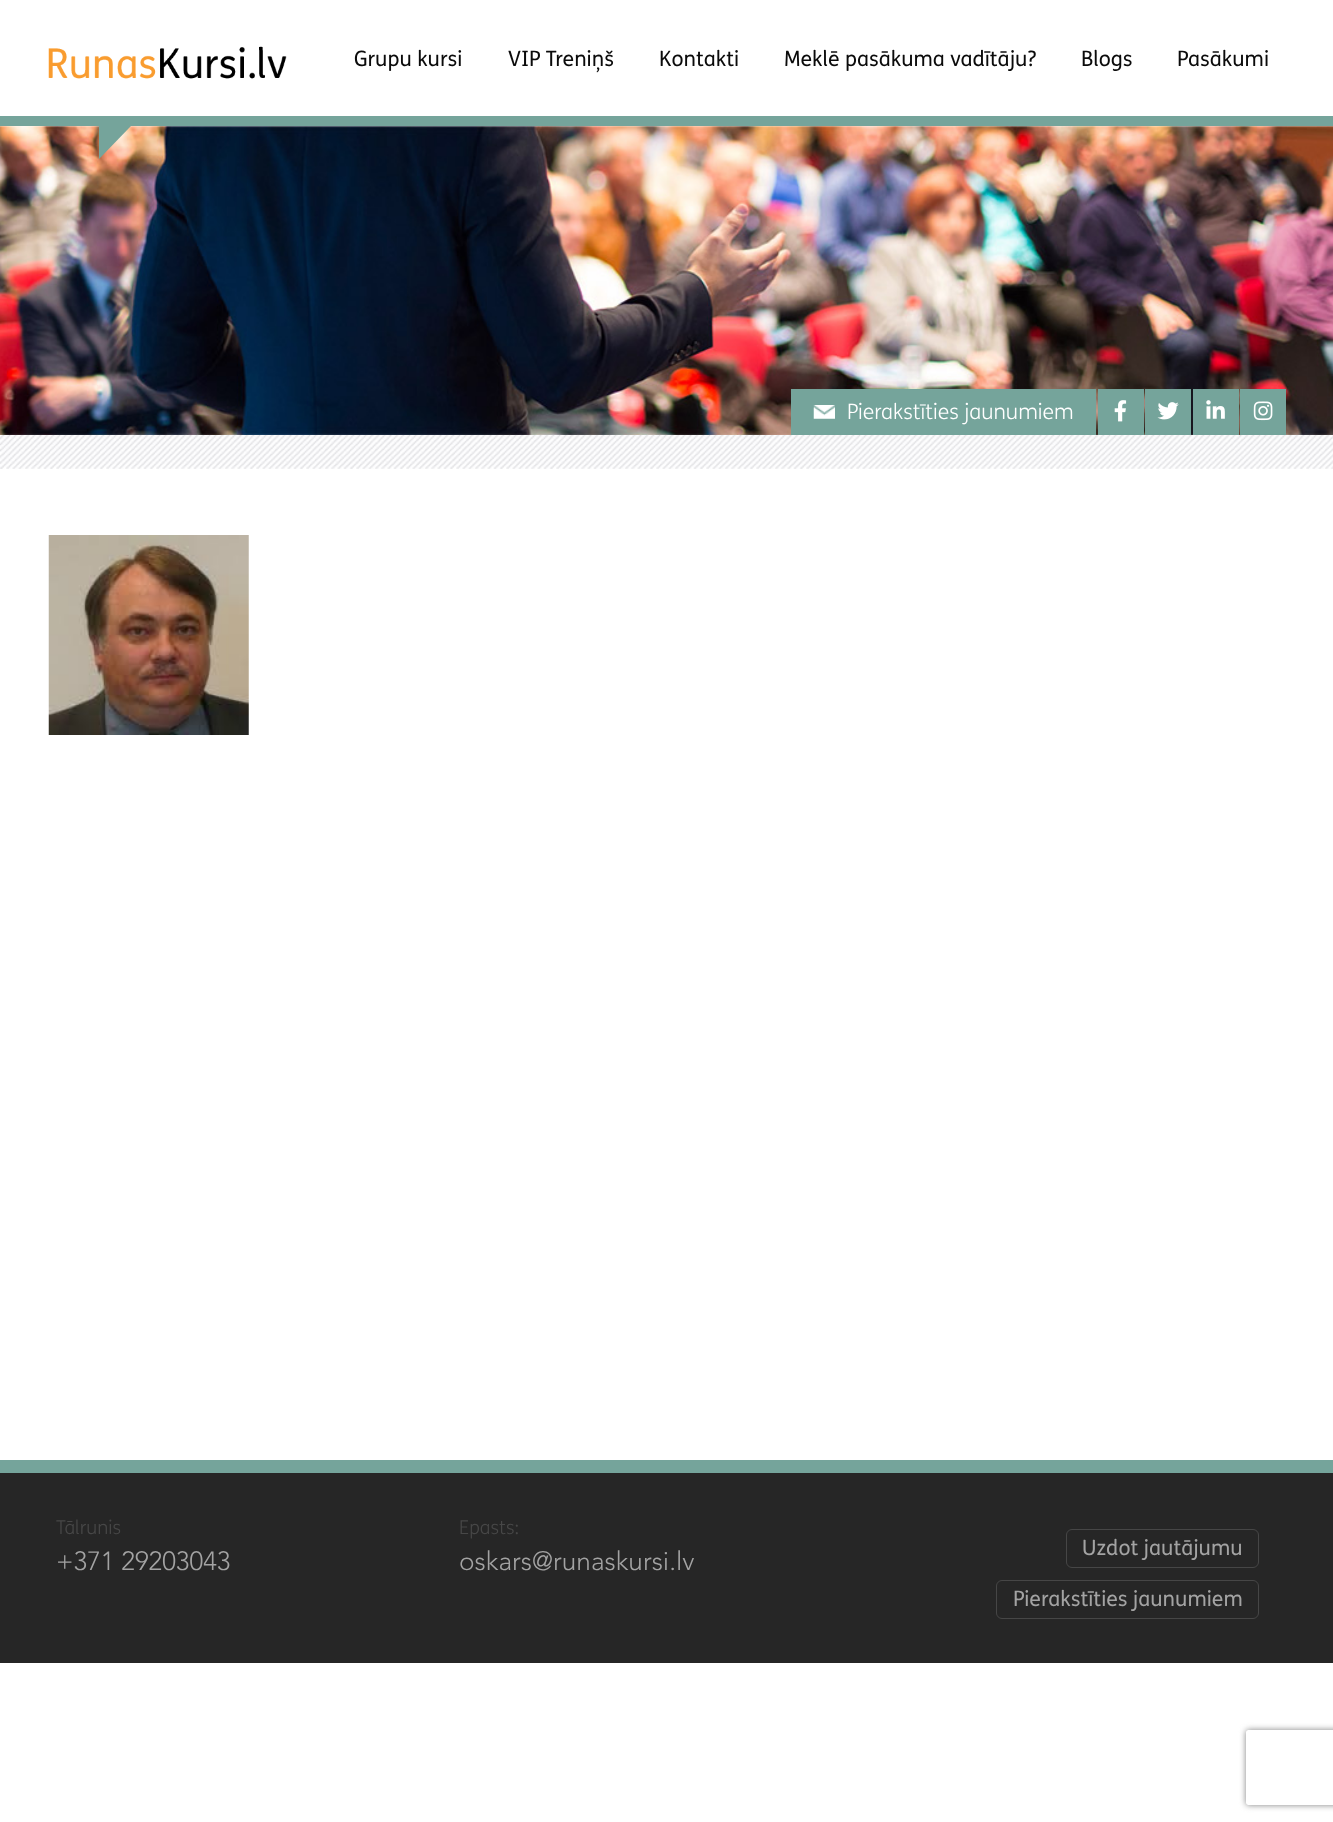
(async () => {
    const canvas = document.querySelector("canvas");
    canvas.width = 1333;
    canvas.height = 1822;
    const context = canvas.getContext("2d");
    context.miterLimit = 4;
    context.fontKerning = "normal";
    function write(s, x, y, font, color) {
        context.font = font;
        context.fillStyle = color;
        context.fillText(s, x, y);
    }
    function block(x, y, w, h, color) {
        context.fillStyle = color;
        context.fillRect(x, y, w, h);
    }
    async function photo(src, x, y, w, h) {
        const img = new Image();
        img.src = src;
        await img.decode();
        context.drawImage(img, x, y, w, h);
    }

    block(0, 0, 1333, 1822, "rgb(255, 255, 255)");
    block(0, 116, 1333, 10, "rgb(117, 164, 155)");
    await photo("media/1.png", 48, 46, 239, 33);
    write("Grupu kursi", 354, 66, "21.25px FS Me", "rgb(11, 11, 11)");
    write("VIP Treniņš", 508, 66, "21.25px FS Me", "rgb(11, 11, 11)");
    write("Kontakti", 659, 66, "21.25px FS Me", "rgb(11, 11, 11)");
    write("Meklē pasākuma vadītāju?", 784, 66, "21.25px FS Me", "rgb(11, 11, 11)");
    write("Blogs", 1081, 66, "21.25px FS Me", "rgb(11, 11, 11)");
    write("Pasākumi", 1177, 66, "21.25px FS Me", "rgb(11, 11, 11)");
    await photo("media/2.png", 0, 126, 1333, 309);
    context.fillStyle = "rgb(117, 164, 155)";
    context.beginPath();
    context.moveTo(99, 126);
    context.lineTo(131, 126);
    context.lineTo(99, 159);
    context.closePath();
    context.fill();
    block(791, 389, 305, 46, "rgb(117, 164, 155)");
    await photo("media/3.png", 813, 405, 22, 14);
    write("Pierakstīties jaunumiem", 847, 419, "300 21.25px FS Me", "rgb(255, 255, 255)");
    block(1098, 389, 46, 46, "rgb(117, 164, 155)");
    await photo("media/4.png", 1114, 400, 13, 22);
    block(1145, 389, 46, 46, "rgb(117, 164, 155)");
    await photo("media/5.png", 1157, 402, 22, 18);
    block(1193, 389, 46, 46, "rgb(117, 164, 155)");
    await photo("media/6.png", 1206, 400, 19, 19);
    block(1240, 389, 46, 46, "rgb(117, 164, 155)");
    await photo("media/7.png", 1253, 401, 20, 20);
    await photo("media/8.png", 0, 435, 1333, 34);
    await photo("media/9.png", 48, 535, 201, 200);
    block(0, 1473, 1333, 190, "rgb(38, 38, 38)");
    block(0, 1460, 1333, 13, "rgb(117, 164, 155)");
    write("Tālrunis", 56, 1534, "300 19px FS Me", "rgb(71, 71, 71)");
    write("+371 29203043", 56, 1570, "300 26.25px Avenir", "rgb(163, 163, 163)");
    write("Epasts:", 459, 1534, "300 19px FS Me", "rgb(71, 71, 71)");
    write("oskars@runaskursi.lv", 459, 1570, "300 26.25px Avenir", "rgb(163, 163, 163)");
    context.beginPath();
    context.roundRect(1066.5, 1529.5, 192, 38, 5.5);
    context.strokeStyle = "rgb(70, 70, 70)";
    context.stroke();
    write("Uzdot jautājumu", 1082, 1555, "21.25px FS Me", "rgb(163, 163, 163)");
    context.beginPath();
    context.roundRect(996.5, 1580.5, 262, 38, 5.5);
    context.stroke();
    write("Pierakstīties jaunumiem", 1013, 1606, "21.25px FS Me", "rgb(163, 163, 163)");
    context.save();
    context.beginPath();
    context.moveTo(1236, 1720);
    context.lineTo(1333, 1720);
    context.lineTo(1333, 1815);
    context.lineTo(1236, 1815);
    context.closePath();
    context.moveTo(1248.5, 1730);
    context.lineTo(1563.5, 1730);
    context.bezierCurveTo(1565, 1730, 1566, 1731, 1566, 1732.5);
    context.lineTo(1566, 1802.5);
    context.bezierCurveTo(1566, 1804, 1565, 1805, 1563.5, 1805);
    context.lineTo(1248.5, 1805);
    context.bezierCurveTo(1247, 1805, 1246, 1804, 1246, 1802.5);
    context.lineTo(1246, 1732.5);
    context.bezierCurveTo(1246, 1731, 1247, 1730, 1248.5, 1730);
    context.closePath();
    context.clip("evenodd");
    context.fillStyle = "rgb(128, 128, 128)";
    context.filter = "blur(3px)";
    context.beginPath();
    context.roundRect(1246, 1730, 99, 75, 2.5);
    context.fill();
    context.filter = "none";
    context.restore();
})();
